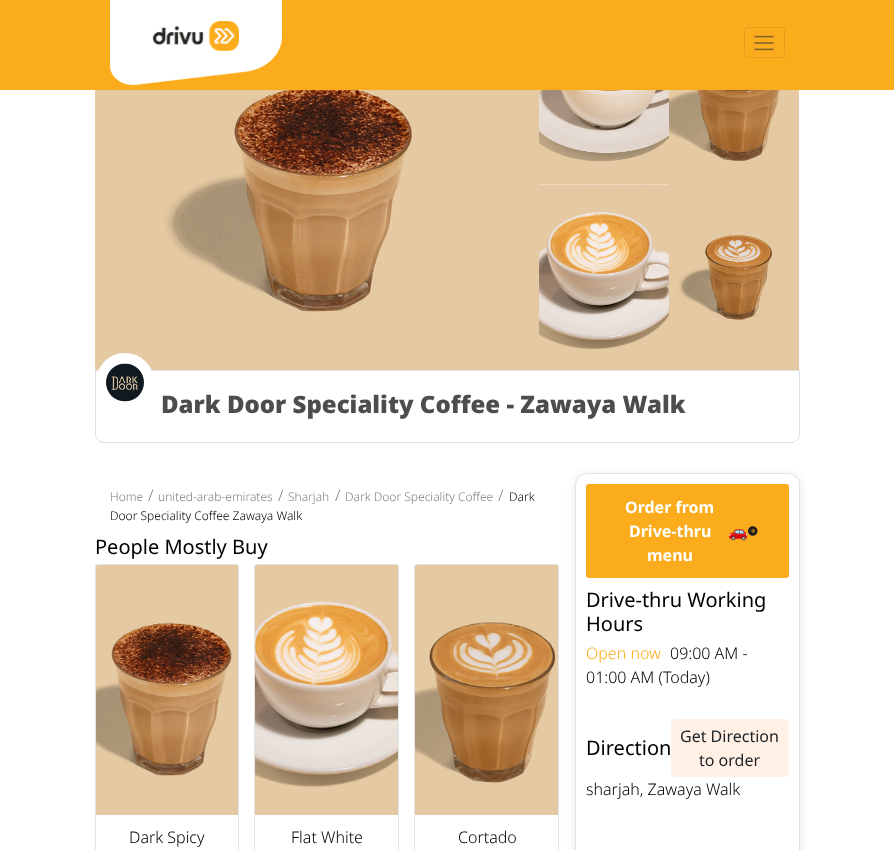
(async () => {
    const canvas = document.querySelector("canvas");
    canvas.width = 894;
    canvas.height = 850;
    const context = canvas.getContext("2d");
    context.miterLimit = 4;
    context.fontKerning = "normal";
    function write(s, x, y, font, color) {
        context.font = font;
        context.fillStyle = color;
        context.fillText(s, x, y);
    }
    function block(x, y, w, h, color) {
        context.fillStyle = color;
        context.fillRect(x, y, w, h);
    }
    async function photo(src, x, y, w, h) {
        const img = new Image();
        img.src = src;
        await img.decode();
        context.drawImage(img, x, y, w, h);
    }

    block(0, 0, 894, 850, "rgb(255, 255, 255)");
    block(0, 0, 894, 90, "rgb(251, 172, 28)");
    await photo("media/1.png", 110, 0, 172, 85);
    await photo("media/2.png", 152, 21, 87, 30);
    context.beginPath();
    context.roundRect(744.5, 27.5, 40, 30, 2);
    context.strokeStyle = "rgb(229, 159, 30)";
    context.stroke();
    await photo("media/3.png", 754, 35, 20, 16);
    await photo("media/4.png", 95, 90, 444, 280);
    await photo("media/5.png", 539, 90, 130, 95);
    await photo("media/6.png", 539, 185, 130, 185);
    await photo("media/7.png", 669, 90, 130, 95);
    await photo("media/8.png", 669, 185, 130, 185);
    context.beginPath();
    context.roundRect(95.5, 370.5, 704, 72, [0, 0, 8.5, 8.5]);
    context.strokeStyle = "rgb(222, 226, 230)";
    context.stroke();
    context.fillStyle = "rgb(255, 255, 255)";
    context.beginPath();
    context.arc(125, 382, 24, 0, Math.PI * 2);
    context.fill();
    context.strokeStyle = "rgb(255, 255, 255)";
    context.lineWidth = 10;
    context.stroke();
    await photo("media/9.png", 106, 363, 38, 39);
    write("Dark Door Speciality Coffee - Zawaya Walk", 161, 413, "900 24px Noto Sans", "rgb(77, 77, 77)");
    write("Home", 110, 501, "300 12px Noto Sans", "rgb(128, 128, 128)");
    write("/", 148, 501, "300 16px Noto Sans", "rgb(128, 128, 128)");
    write("united-arab-emirates", 158, 501, "300 12px Noto Sans", "rgb(128, 128, 128)");
    write("/", 278, 501, "300 16px Noto Sans", "rgb(128, 128, 128)");
    write("Sharjah", 288, 501, "300 12px Noto Sans", "rgb(128, 128, 128)");
    write("/", 335, 501, "300 16px Noto Sans", "rgb(128, 128, 128)");
    write("Dark Door Speciality Coffee", 345, 501, "300 12px Noto Sans", "rgb(128, 128, 128)");
    write("/", 498, 501, "300 16px Noto Sans", "rgb(128, 128, 128)");
    write("Dark", 509, 501, "300 12px Noto Sans", "rgb(0, 0, 0)");
    write("Door Speciality Coffee Zawaya Walk", 110, 520, "300 12px Noto Sans", "rgb(0, 0, 0)");
    write("People Mostly Buy", 95, 554, "20px Noto Sans", "rgb(0, 0, 0)");
    context.beginPath();
    context.roundRect(95.5, 564.5, 143, 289, 2);
    context.strokeStyle = "rgb(227, 229, 229)";
    context.lineWidth = 1;
    context.stroke();
    await photo("media/10.png", 96, 565, 142, 250);
    write("Dark Spicy", 129, 843, "300 16px Noto Sans", "rgb(0, 0, 0)");
    context.beginPath();
    context.roundRect(254.5, 564.5, 144, 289, 2);
    context.stroke();
    await photo("media/11.png", 255, 565, 143, 250);
    write("Flat White", 291, 843, "300 16px Noto Sans", "rgb(0, 0, 0)");
    context.beginPath();
    context.roundRect(414.5, 564.5, 144, 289, 2);
    context.stroke();
    await photo("media/12.png", 415, 565, 143, 250);
    write("Cortado", 458, 843, "300 16px Noto Sans", "rgb(0, 0, 0)");
    context.fillStyle = "rgba(28, 28, 28, 0.12)";
    context.filter = "blur(4px)";
    context.beginPath();
    context.roundRect(575, 475, 225, 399, 12);
    context.fill();
    context.filter = "none";
    context.fillStyle = "rgb(255, 255, 255)";
    context.beginPath();
    context.roundRect(575.5, 473.5, 224, 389, 11.5);
    context.fill();
    context.strokeStyle = "rgb(222, 226, 230)";
    context.stroke();
    context.fillStyle = "rgb(251, 172, 28)";
    context.beginPath();
    context.roundRect(586.5, 484.5, 202, 93, 2);
    context.fill();
    context.strokeStyle = "rgb(251, 172, 28)";
    context.stroke();
    write("Order from", 625, 513, "bold 16px Noto Sans", "rgb(255, 255, 255)");
    write("Drive-thru", 629, 537, "bold 16px Noto Sans", "rgb(255, 255, 255)");
    write("menu", 647, 561, "bold 16px Noto Sans", "rgb(255, 255, 255)");
    write("🚗", 728, 537, "bold 16px Noto Color Emoji", "rgb(0, 0, 0)");
    await photo("media/13.png", 748, 526, 10, 10);
    write("Drive-thru Working", 586, 607, "20px Noto Sans", "rgb(0, 0, 0)");
    write("Hours", 586, 631, "20px Noto Sans", "rgb(0, 0, 0)");
    write("Open now", 586, 659, "300 16px Noto Sans", "rgb(251, 172, 28)");
    write("09:00 AM -", 670, 659, "300 16px Noto Sans", "rgb(0, 0, 0)");
    write("01:00 AM (Today)", 586, 683, "300 16px Noto Sans", "rgb(0, 0, 0)");
    write("Direction", 586, 755, "20px Noto Sans", "rgb(0, 0, 0)");
    context.fillStyle = "rgb(255, 241, 230)";
    context.beginPath();
    context.roundRect(671.5, 719.5, 117, 57, 4.5);
    context.fill();
    context.strokeStyle = "rgb(255, 241, 230)";
    context.stroke();
    write("Get Direction", 680, 742, "16px Noto Sans", "rgb(33, 37, 41)");
    write("to order", 699, 766, "16px Noto Sans", "rgb(33, 37, 41)");
    write("sharjah, Zawaya Walk", 586, 795, "300 16px Noto Sans", "rgb(0, 0, 0)");
})();
